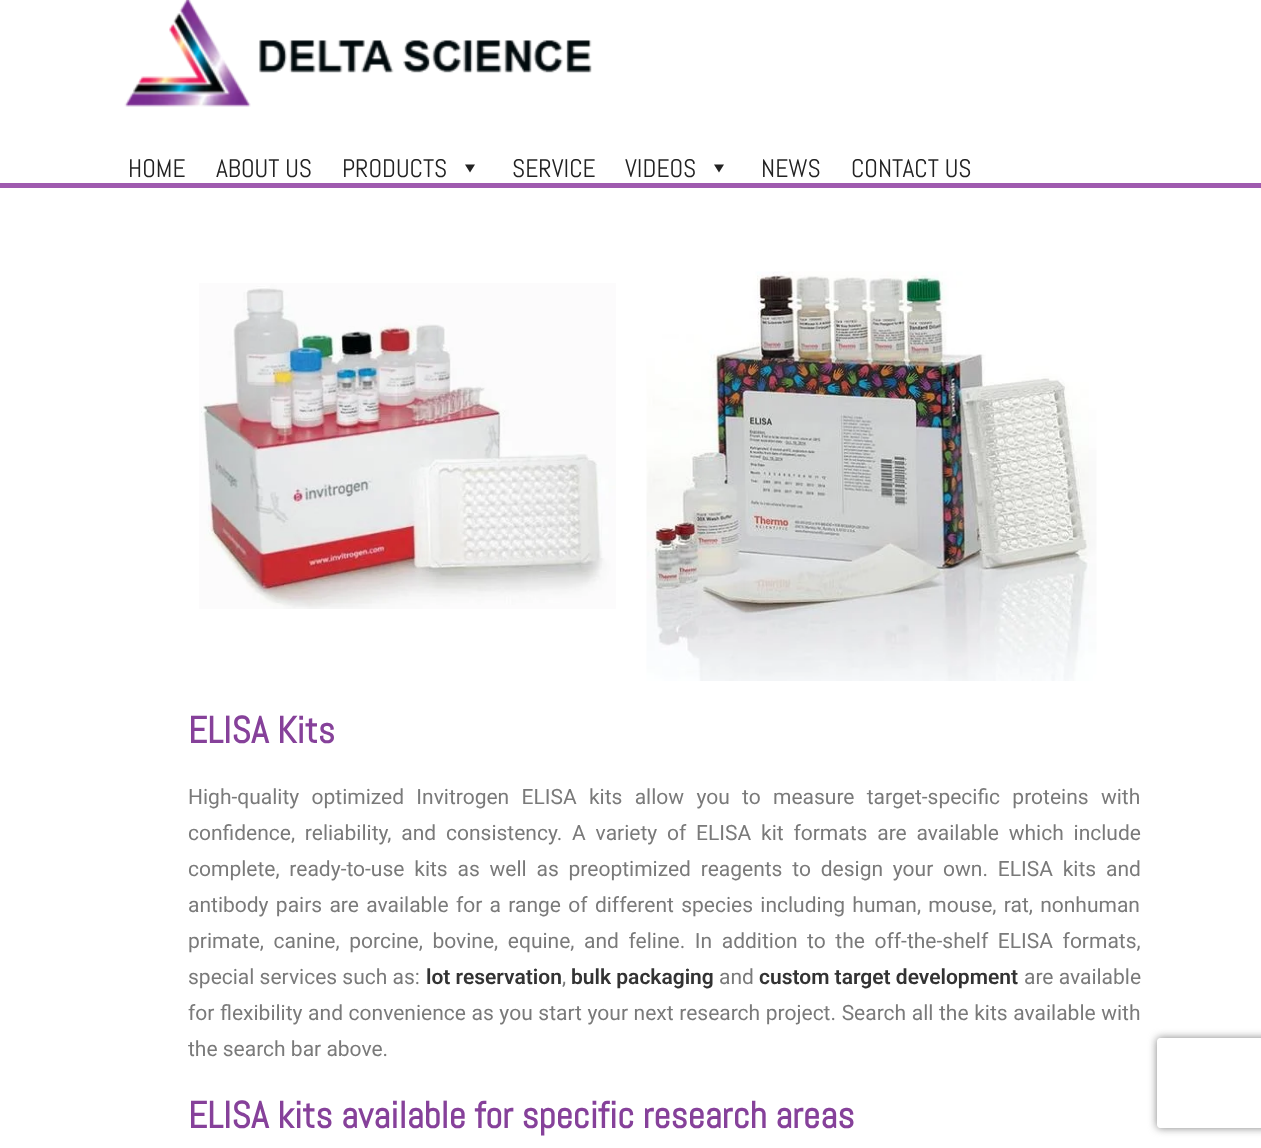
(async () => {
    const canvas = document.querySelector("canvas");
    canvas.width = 1261;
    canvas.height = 1148;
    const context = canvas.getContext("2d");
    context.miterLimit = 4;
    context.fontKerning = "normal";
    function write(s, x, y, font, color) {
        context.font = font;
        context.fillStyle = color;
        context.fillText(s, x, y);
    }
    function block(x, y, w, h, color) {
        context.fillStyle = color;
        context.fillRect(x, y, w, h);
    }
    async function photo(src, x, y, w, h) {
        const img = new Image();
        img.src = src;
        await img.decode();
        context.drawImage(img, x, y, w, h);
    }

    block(0, 0, 1261, 1148, "rgb(255, 255, 255)");
    block(0, 183, 1261, 5, "rgb(159, 90, 175)");
    await photo("media/1.png", 124, 0, 468, 107);
    write("HOME", 128, 177, "25.5px Abel", "rgb(34, 34, 34)");
    write("ABOUT US", 216, 177, "25.5px Abel", "rgb(34, 34, 34)");
    write("PRODUCTS", 342, 177, "25.5px Abel", "rgb(34, 34, 34)");
    context.beginPath();
    context.moveTo(475, 164.5);
    context.lineTo(470, 172.5);
    context.lineTo(465, 164.5);
    context.closePath();
    context.fill();
    write("SERVICE", 512, 177, "25.5px Abel", "rgb(34, 34, 34)");
    write("VIDEOS", 625, 177, "25.5px Abel", "rgb(34, 34, 34)");
    context.beginPath();
    context.moveTo(724, 164.5);
    context.lineTo(719, 172.5);
    context.lineTo(714, 164.5);
    context.closePath();
    context.fill();
    write("NEWS", 761, 177, "25.5px Abel", "rgb(34, 34, 34)");
    write("CONTACT US", 851, 177, "25.5px Abel", "rgb(34, 34, 34)");
    await photo("media/2.png", 199, 283, 417, 326);
    await photo("media/3.png", 646, 271, 451, 410);
    write("ELISA Kits", 188, 743, "bold 37.5px Abel", "rgb(134, 65, 154)");
    context.wordSpacing = "7.1px";
    write("High-quality optimized Invitrogen ELISA kits allow you to measure target-specific proteins with", 188, 804, "21px Roboto", "rgb(122, 122, 122)");
    context.wordSpacing = "4.6px";
    write("confidence, reliability, and consistency. A variety of ELISA kit formats are available which include", 188, 840, "21px Roboto", "rgb(122, 122, 122)");
    write("complete, ready-to-use kits as well as preoptimized reagents to design your own. ELISA kits and", 188, 876, "21px Roboto", "rgb(122, 122, 122)");
    context.wordSpacing = "2.1px";
    write("antibody pairs are available for a range of different species including human, mouse, rat, nonhuman", 188, 912, "21px Roboto", "rgb(122, 122, 122)");
    context.wordSpacing = "4.4px";
    write("primate, canine, porcine, bovine, equine, and feline. In addition to the off-the-shelf ELISA formats,", 188, 948, "21px Roboto", "rgb(122, 122, 122)");
    context.wordSpacing = "0px";
    write("special services such as:", 188, 984, "21px Roboto", "rgb(122, 122, 122)");
    write("lot reservation", 426, 984, "600 21px Roboto", "rgb(51, 51, 51)");
    write(",", 562, 984, "21px Roboto", "rgb(122, 122, 122)");
    write("bulk packaging", 571, 984, "600 21px Roboto", "rgb(51, 51, 51)");
    write("and", 719, 984, "21px Roboto", "rgb(122, 122, 122)");
    write("custom target development", 759, 984, "600 21px Roboto", "rgb(51, 51, 51)");
    write("are available", 1024, 984, "21px Roboto", "rgb(122, 122, 122)");
    context.wordSpacing = "0.4px";
    write("for flexibility and convenience as you start your next research project. Search all the kits available with", 188, 1020, "21px Roboto", "rgb(122, 122, 122)");
    context.wordSpacing = "0px";
    write("the search bar above.", 188, 1056, "21px Roboto", "rgb(122, 122, 122)");
    write("ELISA kits available for specific research areas", 188, 1128, "bold 37.5px Abel", "rgb(134, 65, 154)");
    context.save();
    context.beginPath();
    context.moveTo(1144, 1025);
    context.lineTo(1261, 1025);
    context.lineTo(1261, 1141);
    context.lineTo(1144, 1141);
    context.closePath();
    context.moveTo(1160, 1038);
    context.lineTo(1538, 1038);
    context.bezierCurveTo(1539.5, 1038, 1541, 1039.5, 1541, 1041);
    context.lineTo(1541, 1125);
    context.bezierCurveTo(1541, 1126.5, 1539.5, 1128, 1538, 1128);
    context.lineTo(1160, 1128);
    context.bezierCurveTo(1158.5, 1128, 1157, 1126.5, 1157, 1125);
    context.lineTo(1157, 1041);
    context.bezierCurveTo(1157, 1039.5, 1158.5, 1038, 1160, 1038);
    context.closePath();
    context.clip("evenodd");
    context.fillStyle = "rgb(128, 128, 128)";
    context.filter = "blur(4px)";
    context.beginPath();
    context.roundRect(1157, 1038, 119, 90, 3);
    context.fill();
    context.filter = "none";
    context.restore();
})();
